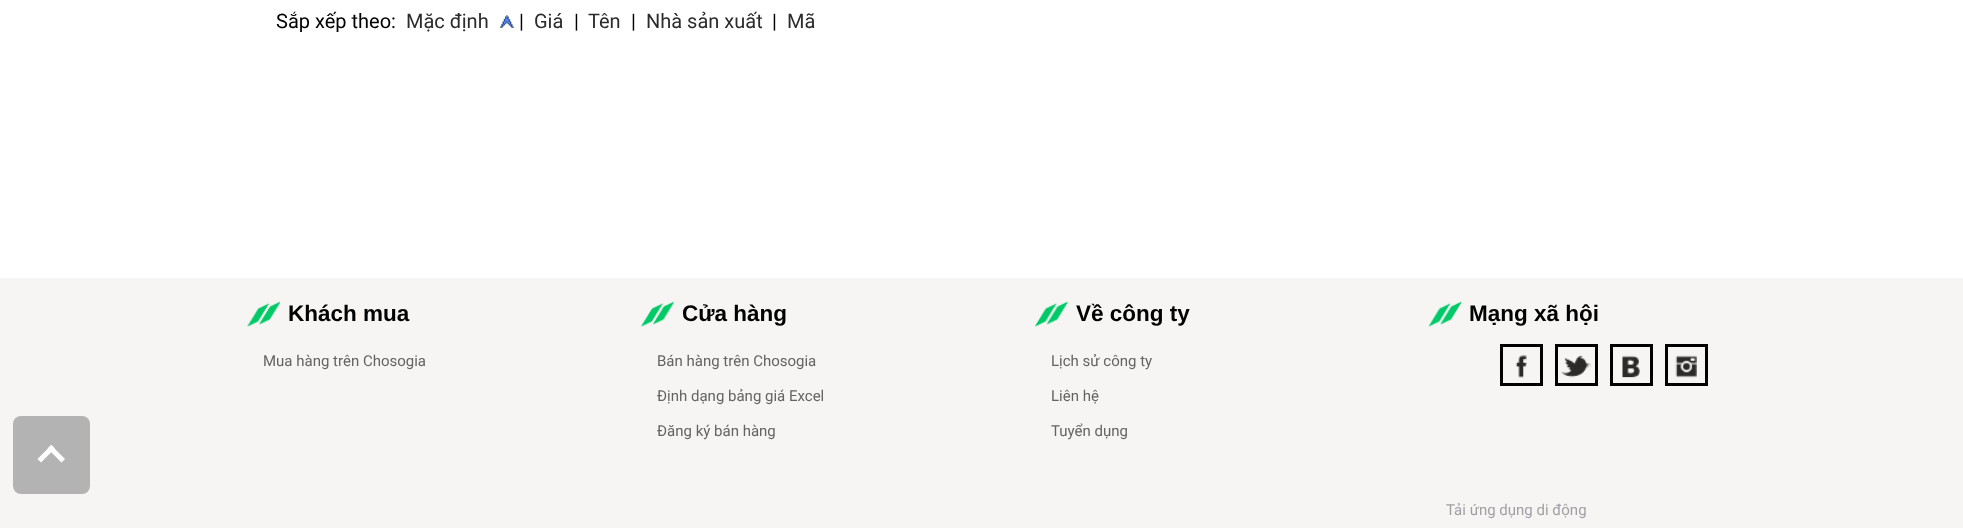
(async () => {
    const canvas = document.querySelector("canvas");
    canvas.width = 1963;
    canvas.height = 528;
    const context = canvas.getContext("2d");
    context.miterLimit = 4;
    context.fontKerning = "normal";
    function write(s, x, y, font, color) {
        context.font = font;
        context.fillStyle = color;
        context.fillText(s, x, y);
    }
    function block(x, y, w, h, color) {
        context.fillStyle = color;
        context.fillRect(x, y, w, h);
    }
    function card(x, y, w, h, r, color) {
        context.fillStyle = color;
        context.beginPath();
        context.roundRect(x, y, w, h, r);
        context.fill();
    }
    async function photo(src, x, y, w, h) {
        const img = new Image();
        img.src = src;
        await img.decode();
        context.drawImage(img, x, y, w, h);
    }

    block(0, 0, 1963, 528, "rgb(255, 255, 255)");
    write("Sắp xếp theo:", 276, 28, "20px Roboto", "rgb(0, 0, 0)");
    write("Mặc định", 406, 28, "20px Roboto", "rgb(43, 43, 43)");
    await photo("media/1.png", 499, 15, 15, 13);
    write("|", 519, 28, "20px Roboto", "rgb(0, 0, 0)");
    write("Giá", 534, 28, "20px Roboto", "rgb(43, 43, 43)");
    write("|", 574, 28, "20px Roboto", "rgb(0, 0, 0)");
    write("Tên", 588, 28, "20px Roboto", "rgb(43, 43, 43)");
    write("|", 631, 28, "20px Roboto", "rgb(0, 0, 0)");
    write("Nhà sản xuất", 646, 28, "20px Roboto", "rgb(43, 43, 43)");
    write("|", 772, 28, "20px Roboto", "rgb(0, 0, 0)");
    write("Mã", 787, 28, "20px Roboto", "rgb(43, 43, 43)");
    block(0, 278, 1963, 250, "rgb(246, 245, 243)");
    card(13, 416, 77, 78, 8, "rgb(179, 179, 179)");
    context.fillStyle = "rgb(255, 255, 255)";
    context.beginPath();
    context.moveTo(37.5, 459);
    context.lineTo(51.5, 445);
    context.lineTo(55, 448.5);
    context.lineTo(41, 462.5);
    context.closePath();
    context.fill();
    context.beginPath();
    context.moveTo(51, 445);
    context.lineTo(65, 459);
    context.lineTo(61.5, 462.5);
    context.lineTo(47.5, 448.5);
    context.closePath();
    context.fill();
    await photo("media/2.png", 247, 301, 33, 26);
    write("Khách mua", 288, 321, "bold 22.5px Liberation Sans", "rgb(0, 0, 0)");
    write("Mua hàng trên Chosogia", 263, 366, "15px Roboto", "rgb(100, 100, 100)");
    await photo("media/3.png", 641, 301, 33, 26);
    write("Cửa hàng", 682, 321, "bold 22.5px Liberation Sans", "rgb(0, 0, 0)");
    write("Bán hàng trên Chosogia", 657, 366, "15px Roboto", "rgb(100, 100, 100)");
    write("Định dạng bảng giá Excel", 657, 401, "15px Roboto", "rgb(100, 100, 100)");
    write("Đăng ký bán hàng", 657, 436, "15px Roboto", "rgb(100, 100, 100)");
    await photo("media/4.png", 1035, 301, 33, 26);
    write("Về công ty", 1076, 321, "bold 22.5px Liberation Sans", "rgb(0, 0, 0)");
    write("Lịch sử công ty", 1051, 366, "15px Roboto", "rgb(100, 100, 100)");
    write("Liên hệ", 1051, 401, "15px Roboto", "rgb(100, 100, 100)");
    write("Tuyển dụng", 1051, 436, "15px Roboto", "rgb(100, 100, 100)");
    await photo("media/5.png", 1428, 301, 34, 26);
    write("Mạng xã hội", 1469, 321, "bold 22.5px Liberation Sans", "rgb(0, 0, 0)");
    context.strokeStyle = "rgb(0, 0, 0)";
    context.lineWidth = 3;
    context.strokeRect(1501.5, 345.5, 40, 39);
    await photo("media/6.png", 1515, 355, 12, 23);
    context.strokeRect(1556.5, 345.5, 40, 39);
    await photo("media/7.png", 1561, 355, 31, 23);
    context.strokeRect(1611.5, 345.5, 40, 39);
    await photo("media/8.png", 1622, 355, 18, 23);
    context.strokeRect(1666.5, 345.5, 40, 39);
    await photo("media/9.png", 1675, 355, 22, 23);
    write("Tải ứng dụng di động", 1446, 515, "15px Roboto", "rgb(162, 159, 164)");
})();
